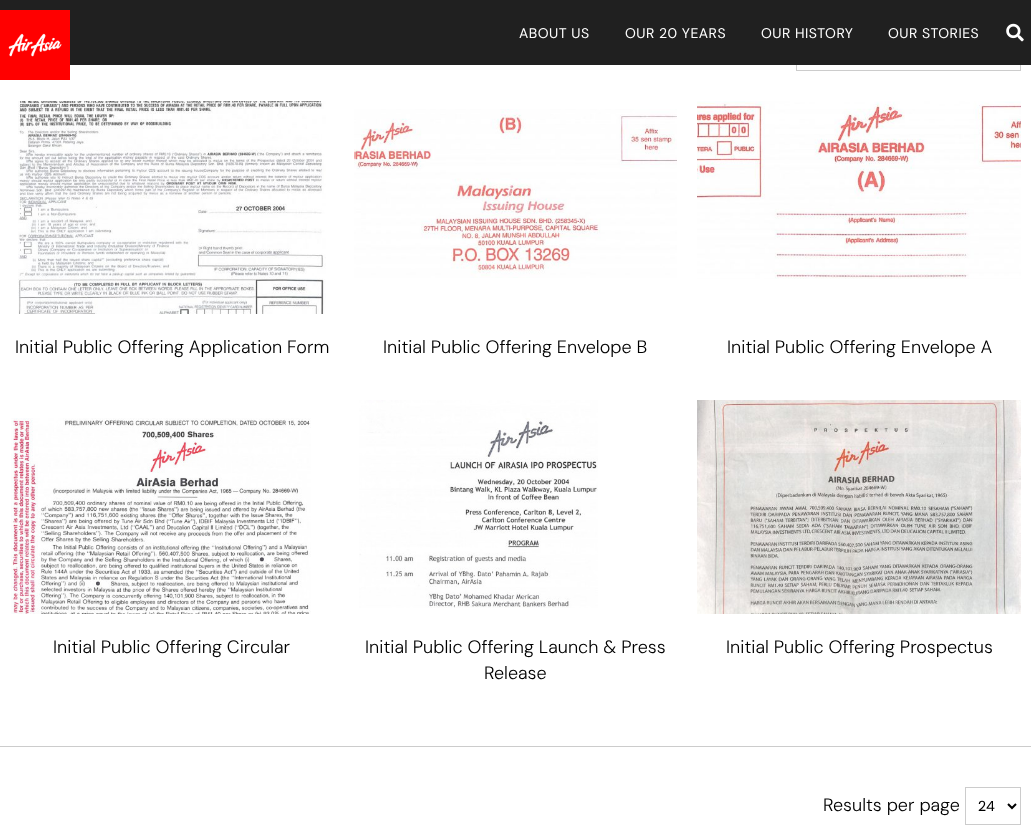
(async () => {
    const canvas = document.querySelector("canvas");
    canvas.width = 1031;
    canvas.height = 827;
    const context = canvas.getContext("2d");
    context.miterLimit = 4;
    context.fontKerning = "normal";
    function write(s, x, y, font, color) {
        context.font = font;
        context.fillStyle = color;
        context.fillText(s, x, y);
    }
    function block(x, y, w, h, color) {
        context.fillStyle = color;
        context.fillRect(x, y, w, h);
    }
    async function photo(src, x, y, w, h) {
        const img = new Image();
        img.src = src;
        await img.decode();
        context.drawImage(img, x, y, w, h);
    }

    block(0, 0, 1031, 827, "rgb(255, 255, 255)");
    context.strokeStyle = "rgb(204, 204, 204)";
    context.strokeRect(796.5, 33.5, 224, 37);
    block(0, 0, 1031, 65, "rgb(32, 32, 32)");
    await photo("media/1.png", 0, 10, 70, 70);
    context.letterSpacing = "0.5px";
    write("ABOUT US", 519, 38, "14px DM Sans", "rgb(255, 255, 255)");
    write("OUR 20 YEARS", 625, 38, "14px DM Sans", "rgb(255, 255, 255)");
    write("OUR HISTORY", 761, 38, "14px DM Sans", "rgb(255, 255, 255)");
    write("OUR STORIES", 888, 38, "14px DM Sans", "rgb(255, 255, 255)");
    await photo("media/2.png", 1006, 23, 18, 19);
    await photo("media/3.png", 18, 101, 308, 213);
    context.letterSpacing = "0px";
    write("Initial Public Offering Application Form", 15, 353, "300 18px DM Sans", "rgb(0, 0, 0)");
    await photo("media/4.png", 354, 109, 323, 169);
    write("Initial Public Offering Envelope B", 383, 353, "300 18px DM Sans", "rgb(0, 0, 0)");
    await photo("media/5.png", 697, 101, 324, 178);
    write("Initial Public Offering Envelope A", 727, 353, "300 18px DM Sans", "rgb(0, 0, 0)");
    await photo("media/6.png", 11, 418, 300, 196);
    write("Initial Public Offering Circular", 53, 653, "300 18px DM Sans", "rgb(0, 0, 0)");
    await photo("media/7.png", 359, 400, 239, 208);
    write("Initial Public Offering Launch & Press", 365, 653, "300 18px DM Sans", "rgb(0, 0, 0)");
    write("Release", 484, 679, "300 18px DM Sans", "rgb(0, 0, 0)");
    await photo("media/8.png", 697, 400, 324, 214);
    write("Initial Public Offering Prospectus", 726, 653, "300 18px DM Sans", "rgb(0, 0, 0)");
    block(0, 746, 1031, 1, "rgb(204, 204, 204)");
    write("Results per page", 823, 811, "300 18px DM Sans", "rgb(0, 0, 0)");
    context.strokeRect(965.5, 787.5, 55, 37);
    context.beginPath();
    context.moveTo(1008, 804);
    context.lineTo(1012, 808);
    context.lineTo(1016, 804);
    context.strokeStyle = "rgb(0, 0, 0)";
    context.lineWidth = 2;
    context.stroke();
    write("24", 978, 811, "14px Poppins", "rgb(0, 0, 0)");
})();
